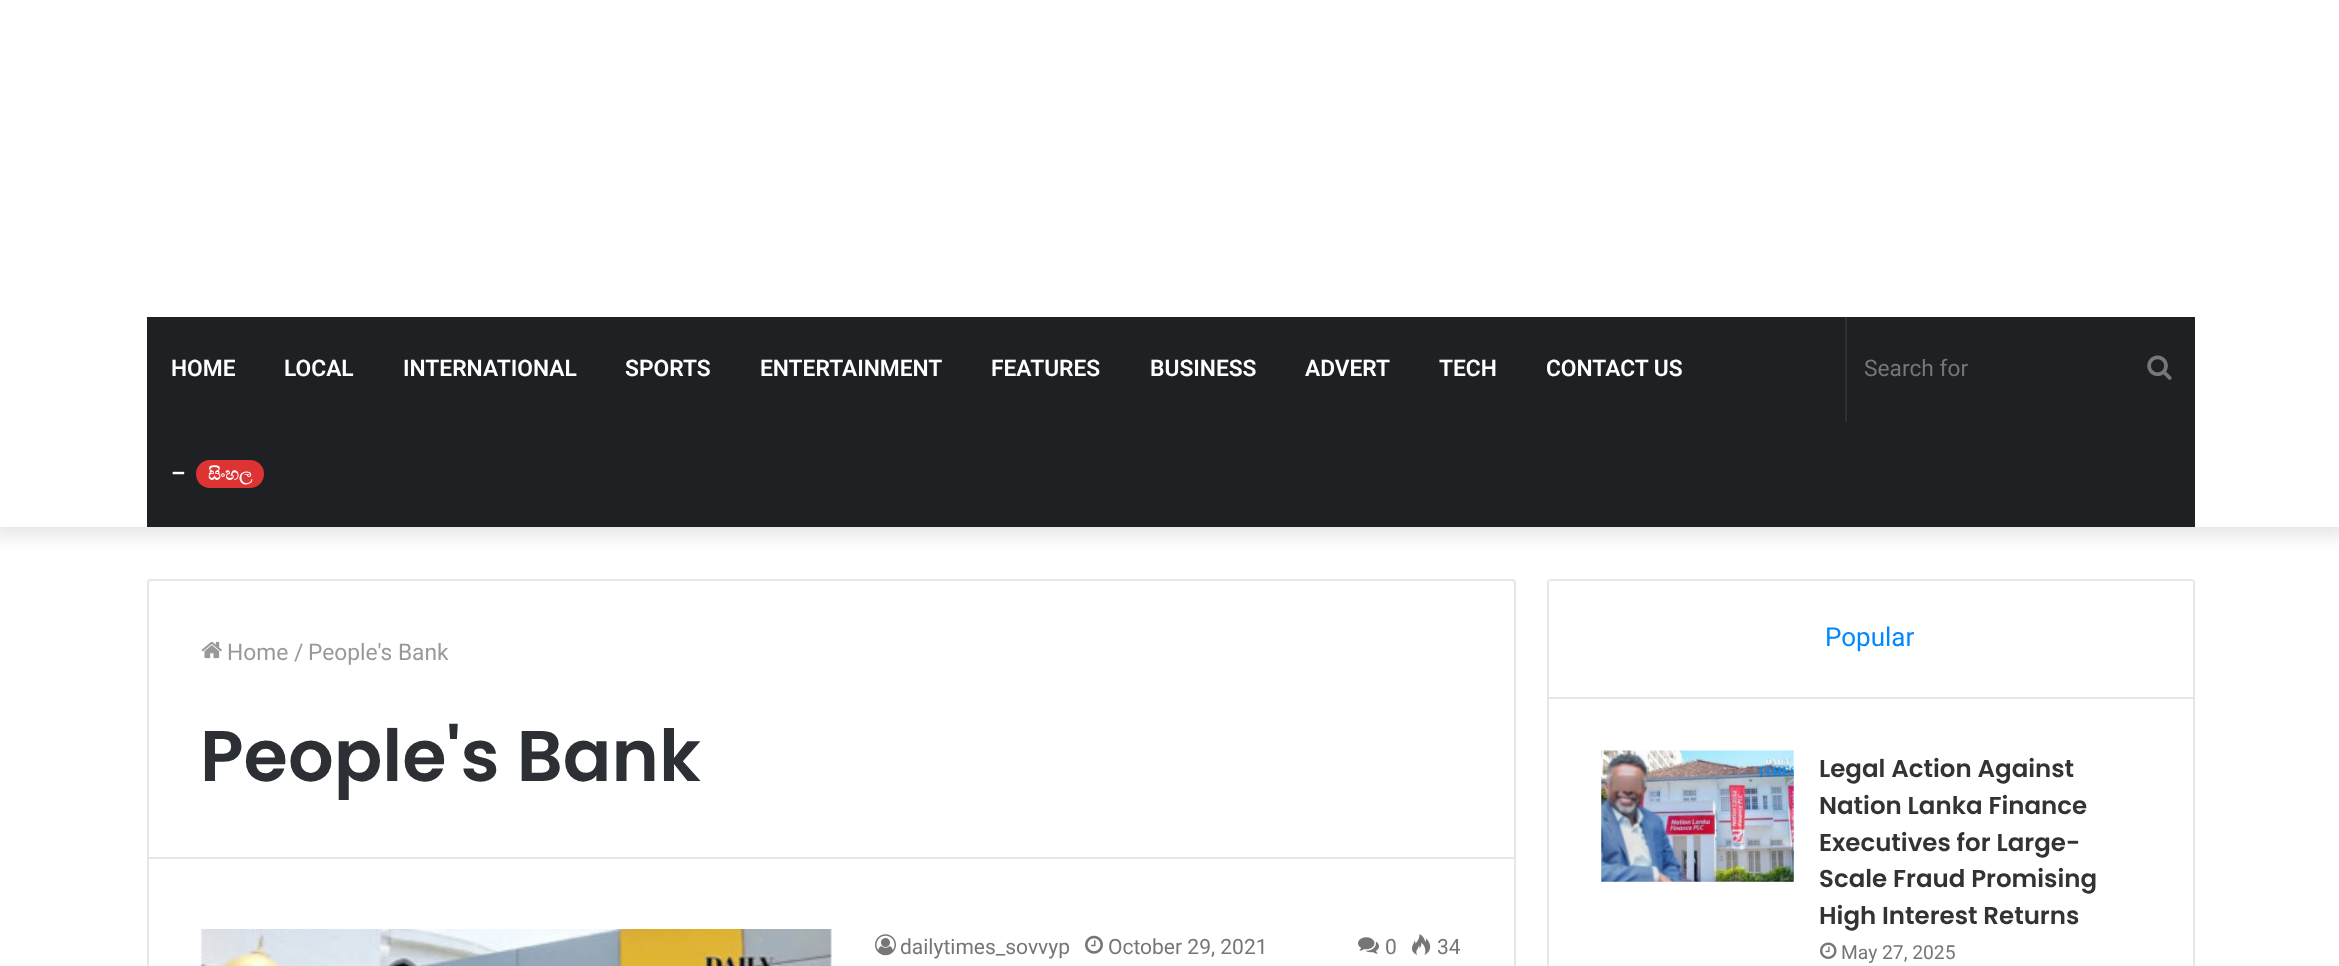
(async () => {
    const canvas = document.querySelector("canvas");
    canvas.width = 2339;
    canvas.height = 966;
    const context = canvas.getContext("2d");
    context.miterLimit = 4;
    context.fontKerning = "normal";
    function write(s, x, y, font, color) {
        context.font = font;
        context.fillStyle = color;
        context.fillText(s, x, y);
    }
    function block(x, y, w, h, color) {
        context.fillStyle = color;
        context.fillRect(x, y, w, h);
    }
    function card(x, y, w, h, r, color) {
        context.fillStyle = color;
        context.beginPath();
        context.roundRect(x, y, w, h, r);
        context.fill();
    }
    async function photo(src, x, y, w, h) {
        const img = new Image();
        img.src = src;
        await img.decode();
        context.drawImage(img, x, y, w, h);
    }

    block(0, 0, 2339, 966, "rgb(255, 255, 255)");
    context.fillStyle = "rgba(0, 0, 0, 0.1)";
    context.filter = "blur(9px)";
    context.beginPath();
    context.rect(-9, -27, 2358, 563);
    context.fill();
    context.filter = "none";
    block(0, 0, 2339, 527, "rgb(255, 255, 255)");
    block(147, 317, 2048, 210, "rgb(31, 32, 36)");
    write("HOME", 171, 376, "600 22.75px Roboto", "rgb(255, 255, 255)");
    write("LOCAL", 284, 376, "600 22.75px Roboto", "rgb(255, 255, 255)");
    write("INTERNATIONAL", 403, 376, "600 22.75px Roboto", "rgb(255, 255, 255)");
    write("SPORTS", 625, 376, "600 22.75px Roboto", "rgb(255, 255, 255)");
    write("ENTERTAINMENT", 760, 376, "600 22.75px Roboto", "rgb(255, 255, 255)");
    write("FEATURES", 991, 376, "600 22.75px Roboto", "rgb(255, 255, 255)");
    write("BUSINESS", 1150, 376, "600 22.75px Roboto", "rgb(255, 255, 255)");
    write("ADVERT", 1305, 376, "600 22.75px Roboto", "rgb(255, 255, 255)");
    write("TECH", 1439, 376, "600 22.75px Roboto", "rgb(255, 255, 255)");
    write("CONTACT US", 1546, 376, "600 22.75px Roboto", "rgb(255, 255, 255)");
    write("–", 171, 481, "600 22.75px Roboto", "rgb(255, 255, 255)");
    card(196, 460, 68, 28, 14, "rgb(221, 51, 51)");
    write("සිංහල", 208, 480, "bold 17.5px FreeSerif", "rgb(255, 255, 255)");
    block(1845, 317, 2, 105, "rgb(47, 48, 51)");
    write("Search for", 1864, 376, "22.75px Roboto", "rgb(118, 118, 118)");
    await photo("media/1.png", 2147, 355, 25, 25);
    context.beginPath();
    context.roundRect(148, 580, 1367, 278, [3, 3, 0, 0]);
    context.strokeStyle = "rgb(230, 230, 230)";
    context.lineWidth = 2;
    context.stroke();
    await photo("media/2.png", 201, 641, 21, 18);
    write("Home", 227, 660, "22.75px Roboto", "rgb(153, 153, 153)");
    write("/", 294, 660, "22.75px Roboto", "rgb(153, 153, 153)");
    write("People's Bank", 308, 660, "22.75px Roboto", "rgb(153, 153, 153)");
    write("People's Bank", 200, 781, "600 71.75px Poppins", "rgb(44, 47, 52)");
    block(1514, 859, 2, 107, "rgb(230, 230, 230)");
    block(147, 859, 2, 107, "rgb(230, 230, 230)");
    await photo("media/3.png", 200, 929, 632, 37);
    await photo("media/4.png", 875, 934, 21, 22);
    write("dailytimes_sovvyp", 900, 954, "21px Roboto", "rgb(118, 118, 118)");
    await photo("media/5.png", 1085, 935, 18, 19);
    write("October 29, 2021", 1108, 954, "21px Roboto", "rgb(118, 118, 118)");
    await photo("media/6.png", 1358, 937, 21, 17);
    write("0", 1385, 954, "21px Roboto", "rgb(118, 118, 118)");
    await photo("media/7.png", 1412, 934, 19, 21);
    write("34", 1437, 954, "21px Roboto", "rgb(118, 118, 118)");
    context.beginPath();
    context.roundRect(1548, 580, 646, 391, 3);
    context.stroke();
    block(1549, 697, 644, 2, "rgb(230, 230, 230)");
    block(1549, 581, 644, 2, "rgb(255, 255, 255)");
    write("Popular", 1825, 646, "26px Roboto", "rgb(0, 136, 255)");
    await photo("media/8.png", 1601, 750, 193, 132);
    write("Legal Action Against", 1819, 777, "600 24.5px Poppins", "rgb(51, 51, 51)");
    write("Nation Lanka Finance", 1819, 814, "600 24.5px Poppins", "rgb(51, 51, 51)");
    write("Executives for Large-", 1819, 851, "600 24.5px Poppins", "rgb(51, 51, 51)");
    write("Scale Fraud Promising", 1819, 887, "600 24.5px Poppins", "rgb(51, 51, 51)");
    write("High Interest Returns", 1819, 924, "600 24.5px Poppins", "rgb(51, 51, 51)");
    await photo("media/9.png", 1820, 942, 17, 17);
    write("May 27, 2025", 1841, 959, "19.25px Roboto", "rgb(118, 118, 118)");
})();
